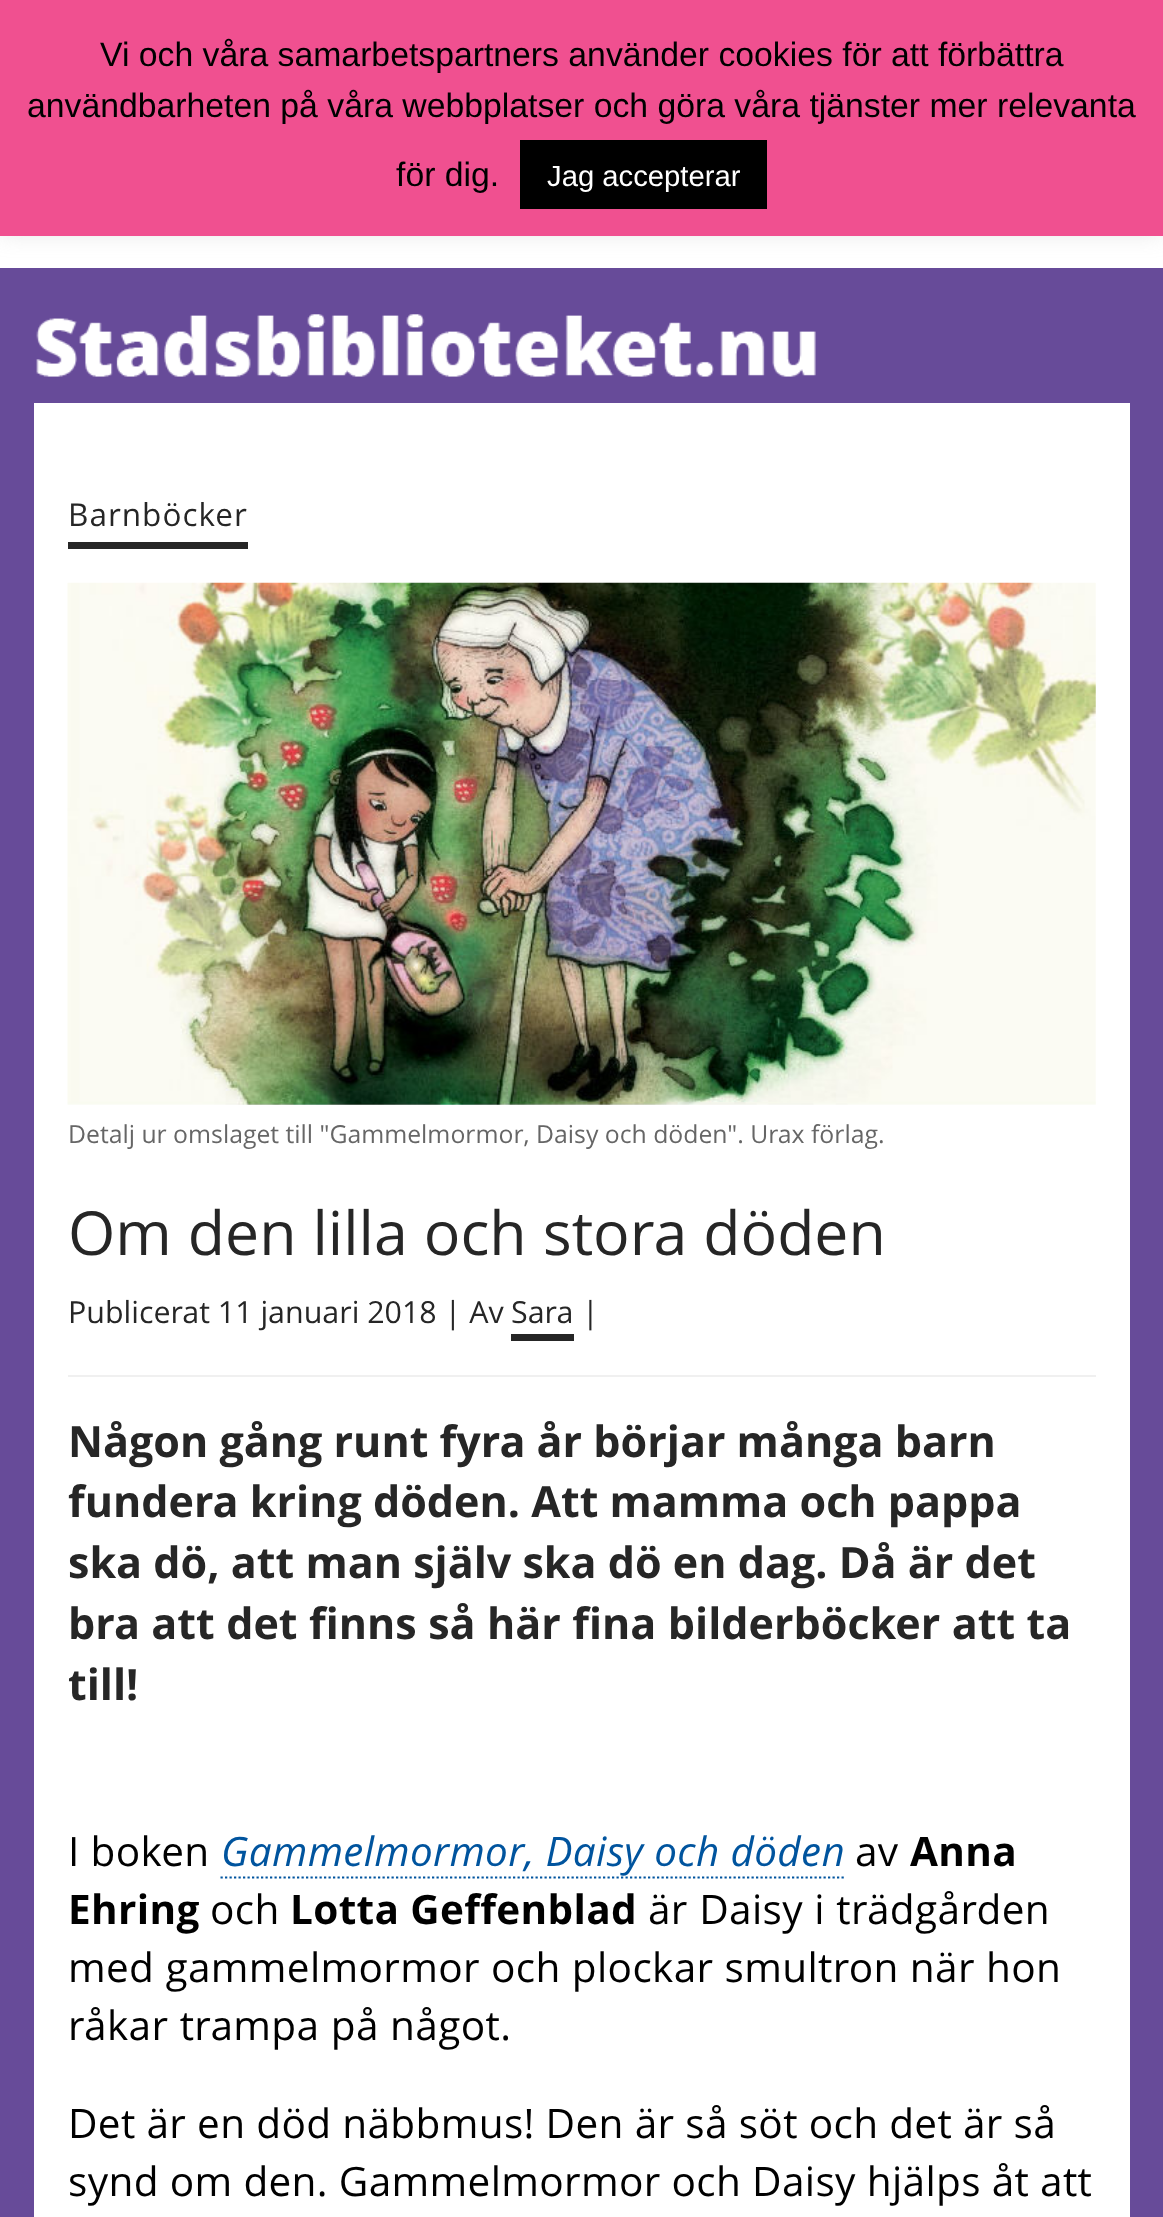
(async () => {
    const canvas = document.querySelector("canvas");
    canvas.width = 1163;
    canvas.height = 2217;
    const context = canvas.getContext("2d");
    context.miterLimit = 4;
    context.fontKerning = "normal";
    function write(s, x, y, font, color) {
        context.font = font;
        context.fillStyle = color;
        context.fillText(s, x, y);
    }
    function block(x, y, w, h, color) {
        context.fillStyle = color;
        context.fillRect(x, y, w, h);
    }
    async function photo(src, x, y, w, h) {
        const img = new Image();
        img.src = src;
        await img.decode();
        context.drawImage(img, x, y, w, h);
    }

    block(0, 0, 1163, 2217, "rgb(103, 75, 153)");
    block(0, 236, 1163, 32, "rgb(255, 255, 255)");
    context.fillStyle = "rgba(172, 171, 171, 0.3)";
    context.filter = "blur(11px)";
    context.beginPath();
    context.rect(0, -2, 1163, 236);
    context.fill();
    context.filter = "none";
    block(0, 0, 1163, 236, "rgb(240, 80, 144)");
    write("Vi och våra samarbetspartners använder cookies för att förbättra", 100, 66, "33.75px Liberation Sans", "rgb(0, 0, 0)");
    write("användbarheten på våra webbplatser och göra våra tjänster mer relevanta", 27, 117, "33.75px Liberation Sans", "rgb(0, 0, 0)");
    write("för dig.", 396, 186, "33.75px Liberation Sans", "rgb(0, 0, 0)");
    block(520, 140, 247, 69, "rgb(0, 0, 0)");
    write("Jag accepterar", 547, 186, "29.25px Liberation Sans", "rgb(255, 255, 255)");
    await photo("media/1.png", 36, 314, 780, 63);
    block(34, 403, 1096, 1814, "rgb(255, 255, 255)");
    context.letterSpacing = "1px";
    write("Barnböcker", 68, 526, "31.5px Open Sans", "rgb(38, 38, 38)");
    block(68, 542, 180, 7, "rgb(38, 38, 38)");
    await photo("media/2.png", 67, 582, 1029, 523);
    context.letterSpacing = "0px";
    write("Detalj ur omslaget till \"Gammelmormor, Daisy och döden\". Urax förlag.", 68, 1143, "24.75px Open Sans", "rgb(102, 102, 102)");
    context.wordSpacing = "0.25px";
    write("Om den lilla och stora döden", 68, 1255, "60.75px Open Sans", "rgb(38, 38, 38)");
    context.wordSpacing = "0px";
    write("Publicerat 11 januari 2018 | Av", 68, 1323, "30.4px Open Sans", "rgb(38, 38, 38)");
    write("Sara", 511, 1323, "30.4px Open Sans", "rgb(38, 38, 38)");
    block(511, 1334, 63, 7, "rgb(38, 38, 38)");
    write("|", 582, 1323, "30.4px Open Sans", "rgb(38, 38, 38)");
    block(68, 1375, 1028, 2, "rgb(240, 240, 240)");
    write("Någon gång runt fyra år börjar många barn", 68, 1457, "bold 43.05px Open Sans", "rgb(38, 38, 38)");
    write("fundera kring döden. Att mamma och pappa", 68, 1517, "bold 43.05px Open Sans", "rgb(38, 38, 38)");
    write("ska dö, att man själv ska dö en dag. Då är det", 68, 1578, "bold 43.05px Open Sans", "rgb(38, 38, 38)");
    context.wordSpacing = "0.25px";
    write("bra att det finns så här fina bilderböcker att ta", 68, 1639, "bold 43.05px Open Sans", "rgb(38, 38, 38)");
    context.wordSpacing = "0px";
    write("till!", 68, 1700, "bold 43.05px Open Sans", "rgb(38, 38, 38)");
    context.letterSpacing = "0.35px";
    write("I boken", 68, 1866, "40.5px Open Sans", "rgb(0, 0, 0)");
    write("Gammelmormor, Daisy och döden", 221, 1866, "italic 40.5px Open Sans", "rgb(0, 84, 158)");
    context.beginPath();
    context.moveTo(220.5, 1877.5);
    context.lineTo(844, 1877.5);
    context.strokeStyle = "rgb(0, 84, 158)";
    context.lineWidth = 2.2;
    context.setLineDash([2.25, 2.25]);
    context.stroke();
    write("av", 855, 1866, "40.5px Open Sans", "rgb(0, 0, 0)");
    write("Anna", 910, 1866, "bold 40.5px Open Sans", "rgb(0, 0, 0)");
    write("Ehring", 68, 1924, "bold 40.5px Open Sans", "rgb(0, 0, 0)");
    write("och", 210, 1924, "40.5px Open Sans", "rgb(0, 0, 0)");
    write("Lotta Geffenblad", 290, 1924, "bold 40.5px Open Sans", "rgb(0, 0, 0)");
    context.wordSpacing = "0.5px";
    write("är Daisy i trädgården", 648, 1924, "40.5px Open Sans", "rgb(0, 0, 0)");
    context.wordSpacing = "0.25px";
    write("med gammelmormor och plockar smultron när hon", 68, 1982, "40.5px Open Sans", "rgb(0, 0, 0)");
    context.wordSpacing = "0.5px";
    write("råkar trampa på något.", 68, 2040, "40.5px Open Sans", "rgb(0, 0, 0)");
    context.wordSpacing = "0px";
    write("Det är en död näbbmus! Den är så söt och det är så", 68, 2138, "40.5px Open Sans", "rgb(0, 0, 0)");
    write("synd om den. Gammelmormor och Daisy hjälps åt att", 68, 2196, "40.5px Open Sans", "rgb(0, 0, 0)");
})();
